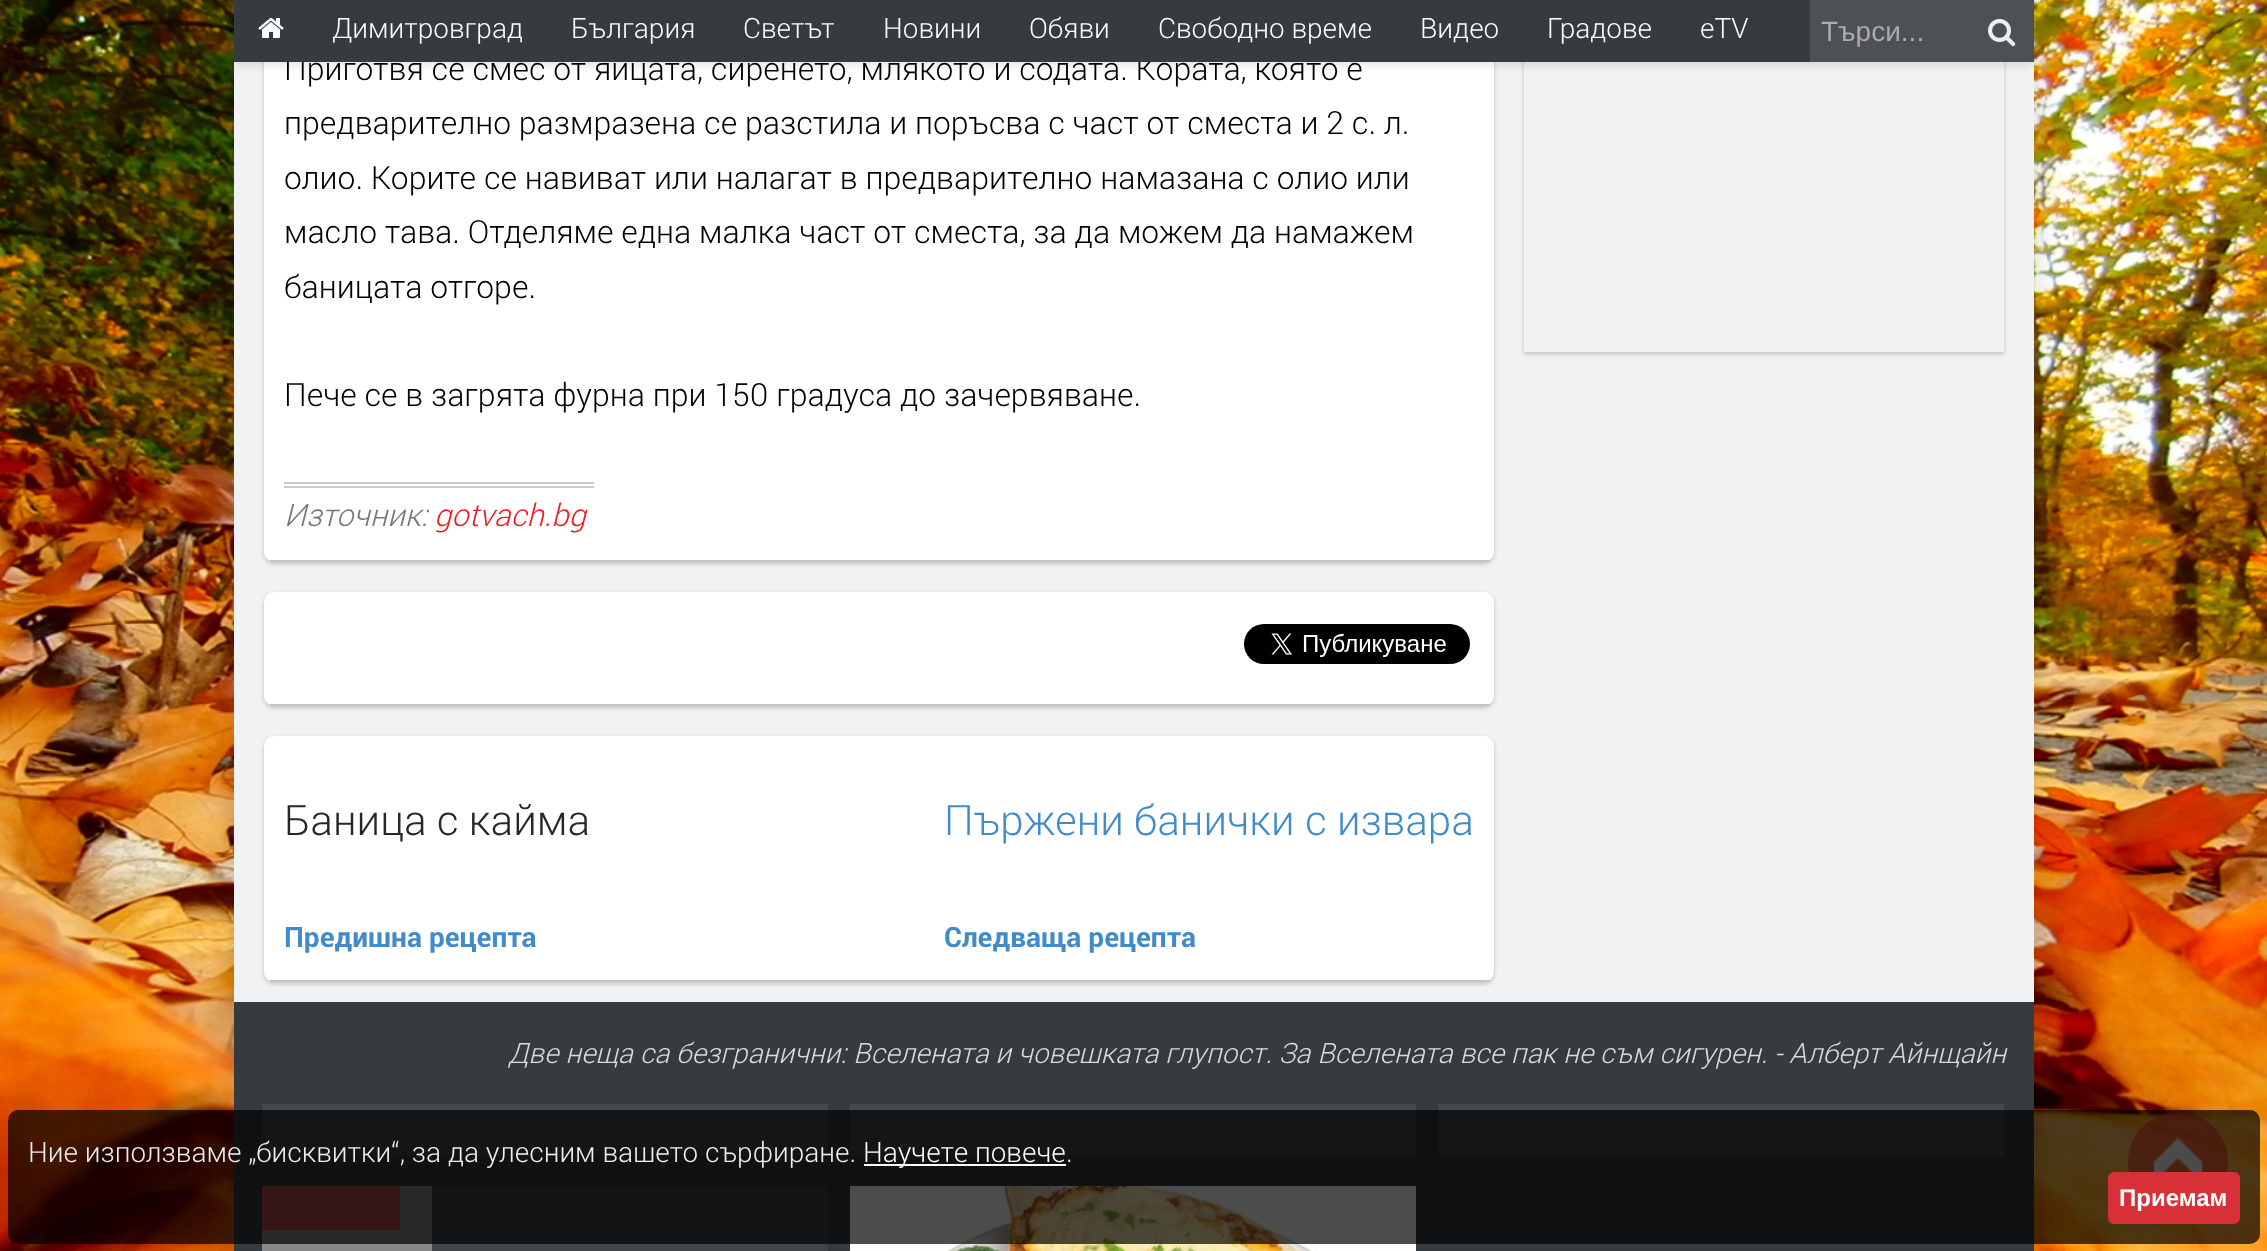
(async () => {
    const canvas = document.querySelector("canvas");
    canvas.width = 2267;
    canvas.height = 1251;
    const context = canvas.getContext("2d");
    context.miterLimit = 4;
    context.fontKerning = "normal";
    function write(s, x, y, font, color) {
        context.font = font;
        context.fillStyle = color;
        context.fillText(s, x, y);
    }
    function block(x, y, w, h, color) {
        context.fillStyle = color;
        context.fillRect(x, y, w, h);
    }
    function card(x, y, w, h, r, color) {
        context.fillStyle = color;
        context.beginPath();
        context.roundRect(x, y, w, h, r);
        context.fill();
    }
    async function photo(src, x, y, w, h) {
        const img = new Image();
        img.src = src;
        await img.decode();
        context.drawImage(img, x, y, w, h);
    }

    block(0, 0, 2267, 1251, "rgb(255, 255, 255)");
    await photo("media/1.png", 0, 0, 2267, 1251);
    context.fillStyle = "rgba(0, 0, 0, 0.15)";
    context.filter = "blur(15px)";
    context.beginPath();
    context.rect(234, -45, 1800, 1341);
    context.fill();
    context.filter = "none";
    block(234, 62, 1800, 940, "rgb(241, 242, 243)");
    context.fillStyle = "rgba(0, 0, 0, 0.2)";
    context.filter = "blur(2px)";
    context.beginPath();
    context.roundRect(264, -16, 1230, 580, 10);
    context.fill();
    context.filter = "none";
    card(264, -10, 1230, 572, 10, "rgb(255, 255, 255)");
    context.fillStyle = "rgba(0, 0, 0, 0.1)";
    context.filter = "blur(5px)";
    context.beginPath();
    context.rect(234, 4, 1800, 62);
    context.fill();
    context.filter = "none";
    write("Приготвя се смес от яйцата, сиренето, млякото и содата. Кората, която е", 284, 80, "300 32px Roboto", "rgb(0, 0, 0)");
    context.save();
    context.beginPath();
    context.moveTo(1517, 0);
    context.lineTo(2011, 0);
    context.lineTo(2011, 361);
    context.lineTo(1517, 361);
    context.closePath();
    context.moveTo(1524, -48);
    context.lineTo(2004, -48);
    context.lineTo(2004, 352);
    context.lineTo(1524, 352);
    context.closePath();
    context.clip("evenodd");
    context.fillStyle = "rgba(0, 0, 0, 0.2)";
    context.filter = "blur(2px)";
    context.beginPath();
    context.rect(1524, -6, 480, 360);
    context.fill();
    context.filter = "none";
    context.restore();
    block(234, 0, 1576, 62, "rgb(54, 59, 64)");
    await photo("media/2.png", 258, 18, 26, 20);
    write("Димитровград", 332, 38, "300 28px Roboto", "rgb(255, 255, 255)");
    write("България", 571, 38, "300 28px Roboto", "rgb(255, 255, 255)");
    write("Светът", 743, 38, "300 28px Roboto", "rgb(255, 255, 255)");
    write("Новини", 883, 38, "300 28px Roboto", "rgb(255, 255, 255)");
    write("Обяви", 1029, 38, "300 28px Roboto", "rgb(255, 255, 255)");
    write("Свободно време", 1158, 38, "300 28px Roboto", "rgb(255, 255, 255)");
    write("Видео", 1420, 38, "300 28px Roboto", "rgb(255, 255, 255)");
    write("Градове", 1547, 38, "300 28px Roboto", "rgb(255, 255, 255)");
    write("eTV", 1700, 38, "300 28px Roboto", "rgb(255, 255, 255)");
    block(1810, 0, 224, 62, "rgb(77, 81, 86)");
    write("Търси...", 1821, 41, "28px Liberation Sans", "rgb(171, 171, 171)");
    await photo("media/3.png", 1988, 19, 28, 28);
    block(270, 560, 1220, 2, "rgb(197, 197, 197)");
    write("предварително размразена се разстила и поръсва с част от сместа и 2 с. л.", 284, 134, "300 32px Roboto", "rgb(0, 0, 0)");
    write("олио. Корите се навиват или налагат в предварително намазана с олио или", 284, 189, "300 32px Roboto", "rgb(0, 0, 0)");
    write("масло тава. Отделяме една малка част от сместа, за да можем да намажем", 284, 243, "300 32px Roboto", "rgb(0, 0, 0)");
    write("баницата отгоре.", 284, 298, "300 32px Roboto", "rgb(0, 0, 0)");
    write("Пече се в загрята фурна при 150 градуса до зачервяване.", 284, 406, "300 32px Roboto", "rgb(0, 0, 0)");
    block(284, 482, 310, 2, "rgb(204, 204, 204)");
    block(284, 486, 310, 2, "rgb(204, 204, 204)");
    write("Източник:", 284, 526, "italic 300 31px Roboto", "rgb(119, 119, 119)");
    write("gotvach.bg", 434, 526, "italic 300 31px Roboto", "rgb(237, 28, 36)");
    context.fillStyle = "rgba(0, 0, 0, 0.2)";
    context.filter = "blur(2px)";
    context.beginPath();
    context.roundRect(264, 594, 1230, 114, 10);
    context.fill();
    context.filter = "none";
    card(264, 592, 1230, 114, 10, "rgb(255, 255, 255)");
    block(270, 704, 1220, 2, "rgb(197, 197, 197)");
    await photo("media/4.png", 1244, 624, 226, 40);
    context.fillStyle = "rgba(0, 0, 0, 0.2)";
    context.filter = "blur(2px)";
    context.beginPath();
    context.roundRect(264, 738, 1230, 246, 10);
    context.fill();
    context.filter = "none";
    card(264, 736, 1230, 246, 10, "rgb(255, 255, 255)");
    block(270, 980, 1220, 2, "rgb(197, 197, 197)");
    write("Баница с кайма", 284, 835, "300 42px Roboto", "rgb(37, 40, 42)");
    write("Предишна рецепта", 284, 947, "bold 28px Roboto", "rgb(66, 139, 202)");
    write("Пържени банички с извара", 944, 835, "300 42px Roboto", "rgb(66, 139, 202)");
    write("Следваща рецепта", 944, 947, "bold 28px Roboto", "rgb(66, 139, 202)");
    block(234, 1002, 1800, 249, "rgb(54, 59, 64)");
    write("Две неща са безгранични: Вселената и човешката глупост. За Вселената все пак не съм сигурен. - Алберт Айнщайн", 508, 1063, "italic 300 28px Roboto", "rgb(215, 220, 224)");
    block(262, 1104, 566, 52, "rgb(66, 73, 79)");
    block(432, 1186, 396, 65, "rgb(64, 69, 74)");
    block(262, 1186, 170, 65, "rgb(136, 136, 136)");
    block(262, 1186, 138, 44, "rgb(177, 70, 70)");
    block(850, 1104, 566, 52, "rgb(66, 73, 79)");
    await photo("media/5.png", 850, 1186, 566, 65);
    block(1438, 1104, 566, 52, "rgb(66, 73, 79)");
    context.fillStyle = "rgba(237, 28, 36, 0.49)";
    context.beginPath();
    context.arc(2178, 1162, 50, 0, Math.PI * 2);
    context.fill();
    await photo("media/6.png", 2153, 1137, 50, 35);
    card(8, 1110, 2252, 134, 10, "rgba(0, 0, 0, 0.7)");
    write("Ние използваме „бисквитки“, за да улесним вашето сърфиране.", 28, 1162, "300 28px Roboto", "rgb(238, 238, 238)");
    block(864, 1164, 202, 2, "rgb(255, 255, 255)");
    write("Научете повече", 863, 1162, "300 28px Roboto", "rgb(255, 255, 255)");
    write(".", 1066, 1162, "300 28px Roboto", "rgb(238, 238, 238)");
    context.fillStyle = "rgb(215, 48, 54)";
    context.beginPath();
    context.roundRect(2109, 1173, 130, 50, 5);
    context.fill();
    context.strokeStyle = "rgb(215, 48, 54)";
    context.lineWidth = 2;
    context.stroke();
    write("Приемам", 2119, 1206, "bold 24px Liberation Sans", "rgb(255, 255, 255)");
})();
